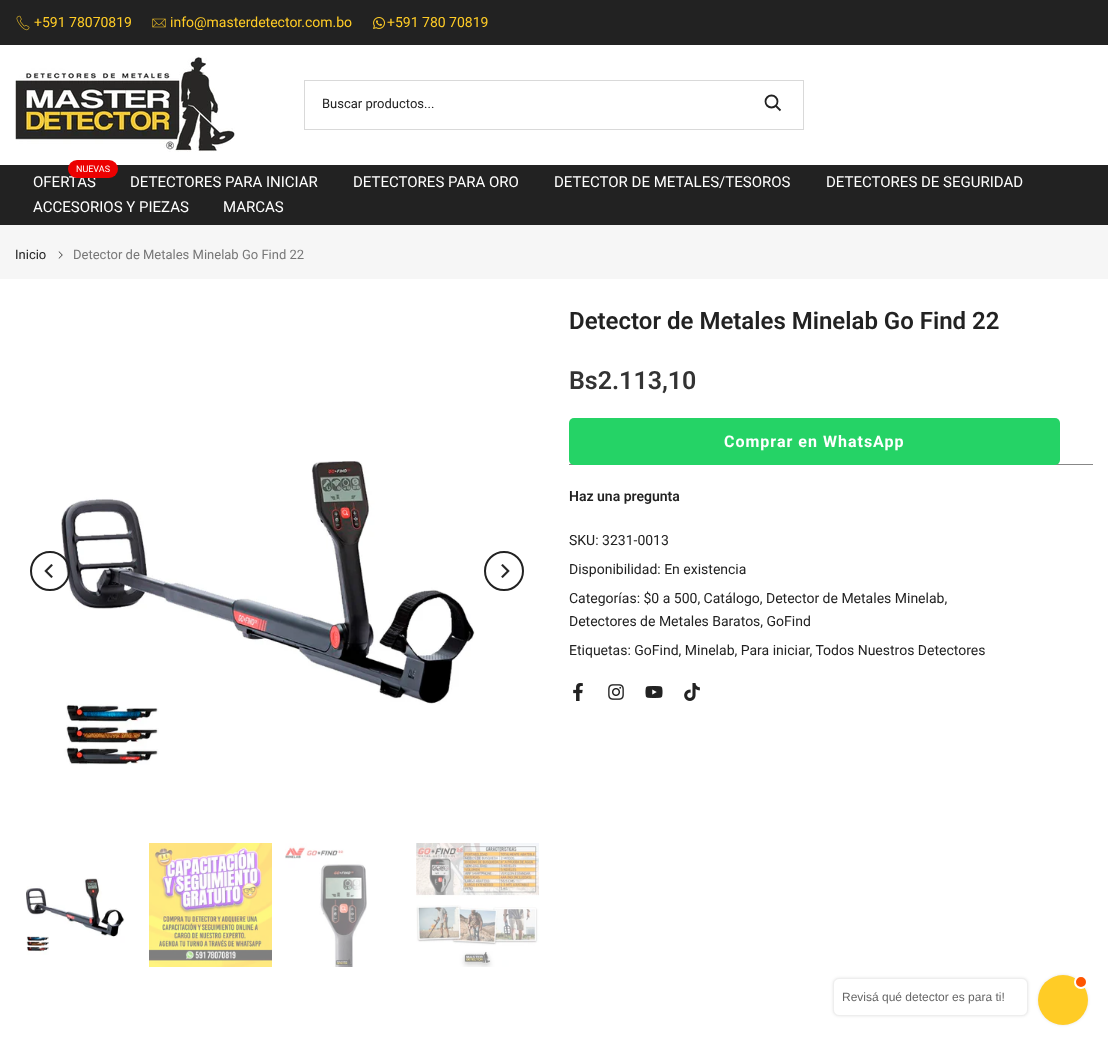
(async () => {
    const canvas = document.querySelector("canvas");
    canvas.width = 1108;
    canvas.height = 1045;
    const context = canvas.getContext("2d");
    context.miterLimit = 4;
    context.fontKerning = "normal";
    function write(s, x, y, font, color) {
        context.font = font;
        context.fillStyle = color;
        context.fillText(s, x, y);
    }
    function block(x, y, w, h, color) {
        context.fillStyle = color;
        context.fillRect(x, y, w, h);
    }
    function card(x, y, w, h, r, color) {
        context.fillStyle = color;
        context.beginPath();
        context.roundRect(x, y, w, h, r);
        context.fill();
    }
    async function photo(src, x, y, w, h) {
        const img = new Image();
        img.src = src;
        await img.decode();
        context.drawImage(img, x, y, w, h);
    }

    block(0, 0, 1108, 1045, "rgb(255, 255, 255)");
    block(0, 0, 1108, 45, "rgb(34, 34, 34)");
    await photo("media/1.png", 16, 15, 14, 16);
    write("+591 78070819", 34, 27, "14px Roboto", "rgb(255, 204, 38)");
    await photo("media/2.png", 152, 18, 14, 10);
    write("info@masterdetector.com.bo", 170, 27, "14px Roboto", "rgb(255, 204, 38)");
    await photo("media/3.png", 373, 17, 12, 12);
    write("+591 780 70819", 387, 27, "14px Roboto", "rgb(255, 204, 38)");
    await photo("media/4.png", 15, 56, 220, 96);
    context.strokeStyle = "rgb(217, 217, 217)";
    context.strokeRect(304.5, 80.5, 499, 49);
    write("Buscar productos...", 322, 108, "13px Roboto", "rgb(34, 34, 34)");
    context.beginPath();
    context.arc(771.5, 101.5, 6, 0, Math.PI * 2);
    context.strokeStyle = "rgb(34, 34, 34)";
    context.lineWidth = 1.8;
    context.stroke();
    context.beginPath();
    context.moveTo(775.5, 105.5);
    context.lineTo(780.5, 110.5);
    context.stroke();
    block(0, 165, 1108, 60, "rgb(34, 34, 34)");
    write("OFERTAS", 33, 187, "15px Roboto", "rgb(255, 255, 255)");
    card(68, 160, 50, 18, 9, "rgb(236, 1, 1)");
    write("NUEVAS", 76, 172, "9px Roboto", "rgb(255, 255, 255)");
    write("DETECTORES PARA INICIAR", 130, 187, "15px Roboto", "rgb(255, 255, 255)");
    write("DETECTORES PARA ORO", 353, 187, "15px Roboto", "rgb(255, 255, 255)");
    write("DETECTOR DE METALES/TESOROS", 554, 187, "15px Roboto", "rgb(255, 255, 255)");
    write("DETECTORES DE SEGURIDAD", 826, 187, "15px Roboto", "rgb(255, 255, 255)");
    write("ACCESORIOS Y PIEZAS", 33, 212, "15px Roboto", "rgb(255, 255, 255)");
    write("MARCAS", 223, 212, "15px Roboto", "rgb(255, 255, 255)");
    block(0, 225, 1108, 54, "rgb(246, 246, 246)");
    write("Inicio", 15, 259, "13px Roboto", "rgb(34, 34, 34)");
    await photo("media/5.png", 58, 251, 5, 8);
    write("Detector de Metales Minelab Go Find 22", 73, 259, "13px Roboto", "rgb(119, 119, 119)");
    await photo("media/7.png", 61, 461, 414, 304);
    context.beginPath();
    context.arc(50, 571, 19, 0, Math.PI * 2);
    context.lineWidth = 2;
    context.stroke();
    await photo("media/6.png", 44, 564, 9, 14);
    context.beginPath();
    context.arc(504, 571, 19, 0, Math.PI * 2);
    context.stroke();
    await photo("media/8.png", 501, 564, 9, 14);
    await photo("media/9.png", 26, 878, 99, 77);
    await photo("media/10.png", 149, 843, 123, 124);
    await photo("media/11.png", 285, 843, 82, 124);
    await photo("media/12.png", 416, 843, 123, 124);
    write("Detector de Metales Minelab Go Find 22", 569, 329, "600 24px Roboto", "rgb(34, 34, 34)");
    write("Bs2.113,10", 569, 389, "600 25px Roboto", "rgb(51, 51, 51)");
    block(569, 464, 524, 1, "rgb(135, 135, 135)");
    card(569, 418, 491, 47, 5, "rgb(37, 211, 102)");
    context.letterSpacing = "1px";
    write("Comprar en WhatsApp", 724, 447, "bold 16px Roboto", "rgb(255, 255, 255)");
    context.letterSpacing = "0px";
    write("Haz una pregunta", 569, 501, "600 14px Roboto", "rgb(34, 34, 34)");
    write("SKU: 3231-0013", 569, 545, "14px Roboto", "rgb(34, 34, 34)");
    write("Disponibilidad: En existencia", 569, 574, "14px Roboto", "rgb(34, 34, 34)");
    write("Categorías: $0 a 500, Catálogo, Detector de Metales Minelab,", 569, 603, "14px Roboto", "rgb(34, 34, 34)");
    write("Detectores de Metales Baratos, GoFind", 569, 626, "14px Roboto", "rgb(34, 34, 34)");
    write("Etiquetas: GoFind, Minelab, Para iniciar, Todos Nuestros Detectores", 569, 655, "14px Roboto", "rgb(34, 34, 34)");
    await photo("media/13.png", 573, 683, 10, 18);
    await photo("media/14.png", 608, 684, 16, 16);
    await photo("media/15.png", 645, 686, 18, 12);
    await photo("media/16.png", 684, 683, 16, 18);
    context.fillStyle = "rgba(0, 0, 0, 0.1)";
    context.filter = "blur(1.5px)";
    context.beginPath();
    context.roundRect(833, 978, 195, 38, 6);
    context.fill();
    context.filter = "none";
    context.fillStyle = "rgb(255, 255, 255)";
    context.beginPath();
    context.roundRect(833.5, 978.5, 194, 37, 5.5);
    context.fill();
    context.strokeStyle = "rgb(238, 238, 238)";
    context.lineWidth = 1;
    context.stroke();
    write("Revisá qué detector es para ti!", 842, 1001, "12px Liberation Sans", "rgb(102, 102, 102)");
    context.fillStyle = "rgba(0, 0, 0, 0.1)";
    context.filter = "blur(1.5px)";
    context.beginPath();
    context.roundRect(1038, 975, 50, 50, 25);
    context.fill();
    context.filter = "none";
    context.fillStyle = "rgb(255, 204, 38)";
    context.beginPath();
    context.arc(1063, 1000, 25, 0, Math.PI * 2);
    context.fill();
    context.fillStyle = "rgb(255, 85, 0)";
    context.beginPath();
    context.arc(1081, 982, 6, 0, Math.PI * 2);
    context.fill();
    context.strokeStyle = "rgb(255, 255, 255)";
    context.lineWidth = 2;
    context.stroke();
})();
